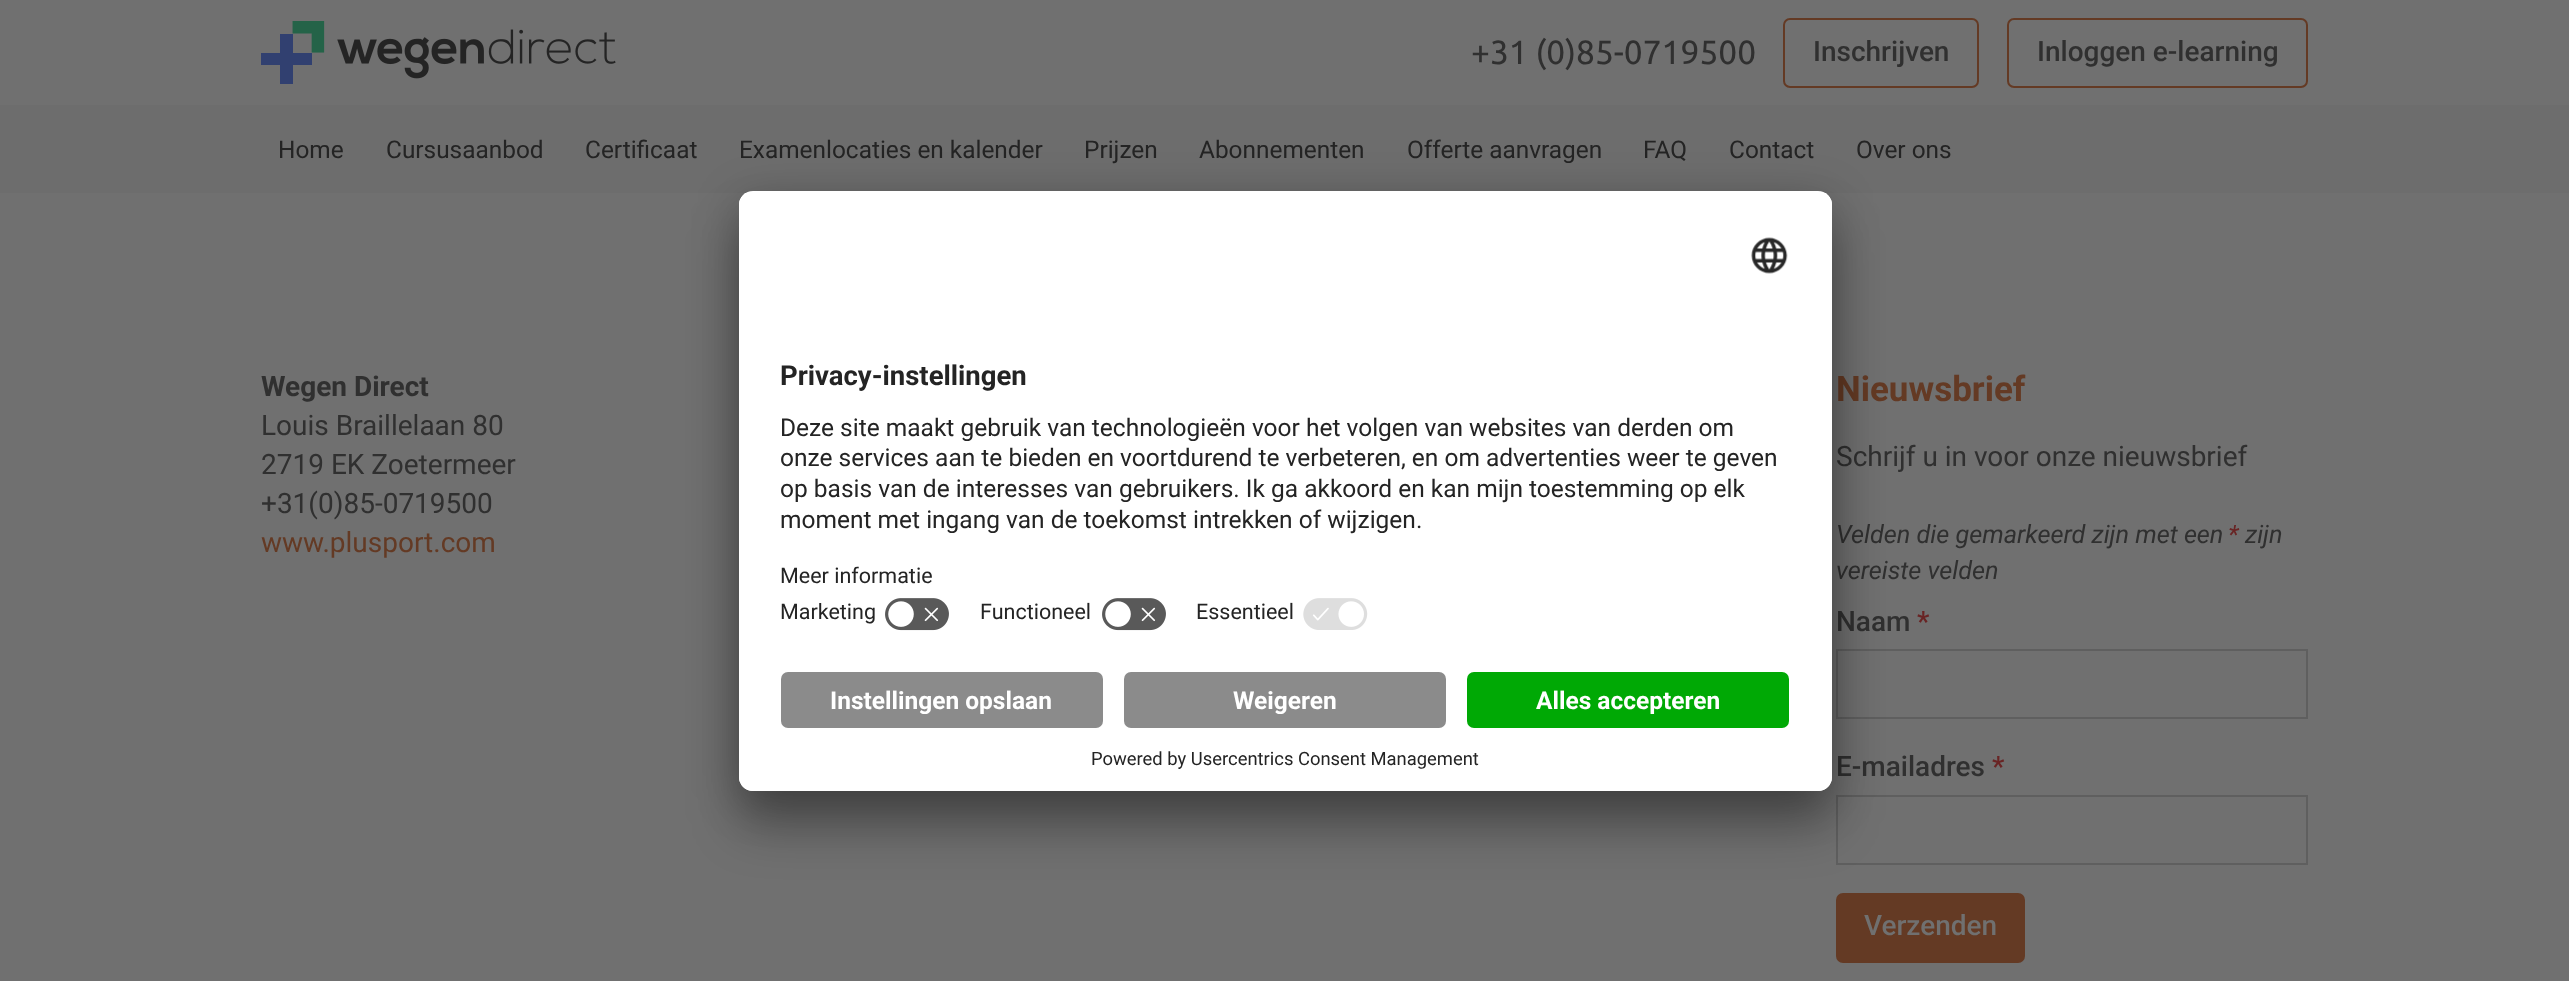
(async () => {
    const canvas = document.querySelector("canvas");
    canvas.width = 2569;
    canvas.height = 981;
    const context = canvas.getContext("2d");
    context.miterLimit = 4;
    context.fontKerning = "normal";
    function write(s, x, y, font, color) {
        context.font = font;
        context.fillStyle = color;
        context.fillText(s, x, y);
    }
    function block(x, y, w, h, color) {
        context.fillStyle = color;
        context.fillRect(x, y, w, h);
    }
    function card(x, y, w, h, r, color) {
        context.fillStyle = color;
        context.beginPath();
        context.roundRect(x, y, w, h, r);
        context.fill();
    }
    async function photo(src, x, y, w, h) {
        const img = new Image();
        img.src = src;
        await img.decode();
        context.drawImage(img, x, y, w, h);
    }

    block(0, 0, 2569, 981, "rgb(112, 112, 112)");
    await photo("media/1.png", 261, 21, 355, 63);
    write("+31 (0)85-0719500", 1471, 64, "33.5px Ubuntu", "rgb(48, 48, 48)");
    context.beginPath();
    context.roundRect(1784, 19, 194, 68, 6);
    context.strokeStyle = "rgb(100, 58, 36)";
    context.lineWidth = 2;
    context.stroke();
    write("Inschrijven", 1813, 61, "500 28px Roboto", "rgb(48, 48, 48)");
    context.beginPath();
    context.roundRect(2008, 19, 299, 68, 6);
    context.stroke();
    write("Inloggen e-learning", 2037, 61, "500 28px Roboto", "rgb(48, 48, 48)");
    block(0, 105, 2569, 88, "rgb(109, 109, 109)");
    write("Home", 278, 158, "24.4px Roboto", "rgb(36, 36, 36)");
    write("Cursusaanbod", 386, 158, "24.4px Roboto", "rgb(36, 36, 36)");
    write("Certificaat", 585, 158, "24.4px Roboto", "rgb(36, 36, 36)");
    write("Examenlocaties en kalender", 739, 158, "24.4px Roboto", "rgb(36, 36, 36)");
    write("Prijzen", 1084, 158, "24.4px Roboto", "rgb(36, 36, 36)");
    write("Abonnementen", 1199, 158, "24.4px Roboto", "rgb(36, 36, 36)");
    write("Offerte aanvragen", 1407, 158, "24.4px Roboto", "rgb(36, 36, 36)");
    write("FAQ", 1643, 158, "24.4px Roboto", "rgb(36, 36, 36)");
    write("Contact", 1729, 158, "24.4px Roboto", "rgb(36, 36, 36)");
    write("Over ons", 1856, 158, "24.4px Roboto", "rgb(36, 36, 36)");
    write("Wegen Direct", 261, 396, "bold 28px Roboto", "rgb(48, 48, 48)");
    write("Louis Braillelaan 80", 261, 435, "28px Roboto", "rgb(48, 48, 48)");
    write("2719 EK Zoetermeer", 261, 474, "28px Roboto", "rgb(48, 48, 48)");
    write("+31(0)85-0719500", 261, 513, "28px Roboto", "rgb(48, 48, 48)");
    write("www.plusport.com", 261, 552, "28px Roboto", "rgb(100, 58, 36)");
    write("Nieuwsbrief", 1836, 401, "bold 35px Roboto", "rgb(100, 58, 36)");
    write("Schrijf u in voor onze nieuwsbrief", 1836, 466, "28px Roboto", "rgb(48, 48, 48)");
    write("Velden die gemarkeerd zijn met een", 1836, 543, "italic 25.25px Roboto", "rgb(48, 48, 48)");
    write("*", 2228, 543, "italic 25.25px Roboto", "rgb(105, 36, 36)");
    write("zijn", 2245, 543, "italic 25.25px Roboto", "rgb(48, 48, 48)");
    write("vereiste velden", 1836, 579, "italic 25.25px Roboto", "rgb(48, 48, 48)");
    write("Naam", 1836, 631, "500 28px Roboto", "rgb(48, 48, 48)");
    write("*", 1917, 631, "500 28px Roboto", "rgb(105, 36, 36)");
    context.strokeStyle = "rgb(95, 95, 95)";
    context.strokeRect(1837, 650, 470, 68);
    write("E-mailadres", 1836, 776, "500 28px Roboto", "rgb(48, 48, 48)");
    write("*", 1992, 776, "500 28px Roboto", "rgb(105, 36, 36)");
    context.strokeRect(1837, 796, 470, 68);
    card(1836, 893, 189, 70, 7, "rgb(100, 58, 36)");
    write("Verzenden", 1864, 935, "500 28px Roboto", "rgb(112, 112, 112)");
    context.fillStyle = "rgba(0, 0, 0, 0.3)";
    context.filter = "blur(24.5px)";
    context.beginPath();
    context.roundRect(739, 226, 1093, 600, 14);
    context.fill();
    context.filter = "none";
    context.fillStyle = "rgba(0, 0, 0, 0.22)";
    context.filter = "blur(23px)";
    context.beginPath();
    context.roundRect(739, 200, 1093, 600, 14);
    context.fill();
    context.filter = "none";
    card(739, 191, 1093, 600, 14, "rgb(255, 255, 255)");
    context.save();
    context.beginPath();
    context.roundRect(739, 191, 1093, 600, 14);
    context.clip();
    context.beginPath();
    context.roundRect(739, 191, 1093, 467, [14, 14, 0, 0]);
    context.clip();
    block(739, 193, 1093, 465, "rgb(255, 255, 255)");
    block(739, 193, 1093, 395, "rgb(255, 255, 255)");
    context.restore();
    await photo("media/2.png", 1751, 237, 37, 37);
    write("Privacy-instellingen", 780, 385, "bold 27.5px Roboto", "rgb(36, 36, 36)");
    write("Deze site maakt gebruik van technologieën voor het volgen van websites van derden om", 780, 436, "24.5px Roboto", "rgb(36, 36, 36)");
    context.save();
    context.beginPath();
    context.rect(781, 406, 1009, 137);
    context.clip();
    write("onze services aan te bieden en voortdurend te verbeteren, en om advertenties weer te geven", 780, 466, "24.5px Roboto", "rgb(36, 36, 36)");
    write("op basis van de interesses van gebruikers. Ik ga akkoord en kan mijn toestemming op elk", 780, 497, "24.5px Roboto", "rgb(36, 36, 36)");
    context.restore();
    write("moment met ingang van de toekomst intrekken of wijzigen.", 780, 528, "24.5px Roboto", "rgb(36, 36, 36)");
    write("Meer informatie", 780, 583, "21.5px Roboto", "rgb(36, 36, 36)");
    write("Marketing", 780, 619, "21.5px Roboto", "rgb(36, 36, 36)");
    await photo("media/3.png", 885, 598, 64, 33);
    write("Functioneel", 980, 619, "21.5px Roboto", "rgb(36, 36, 36)");
    await photo("media/3.png", 1102, 598, 64, 33);
    write("Essentieel", 1196, 619, "21.5px Roboto", "rgb(36, 36, 36)");
    await photo("media/4.png", 1303, 598, 65, 32);
    context.fillStyle = "rgb(255, 255, 255)";
    context.beginPath();
    context.roundRect(739, 658, 1093, 133, [0, 0, 14, 14]);
    context.fill();
    card(781, 672, 322, 56, 7, "rgb(139, 139, 139)");
    write("Instellingen opslaan", 830, 709, "bold 24.5px Roboto", "rgb(255, 255, 255)");
    card(1124, 672, 322, 56, 7, "rgb(139, 139, 139)");
    write("Weigeren", 1233, 709, "bold 24.5px Roboto", "rgb(255, 255, 255)");
    card(1467, 672, 322, 56, 7, "rgb(0, 169, 5)");
    write("Alles accepteren", 1536, 709, "bold 24.5px Roboto", "rgb(255, 255, 255)");
    write("Powered by Usercentrics Consent Management", 1091, 765, "18.4px Roboto", "rgb(36, 36, 36)");
})();
